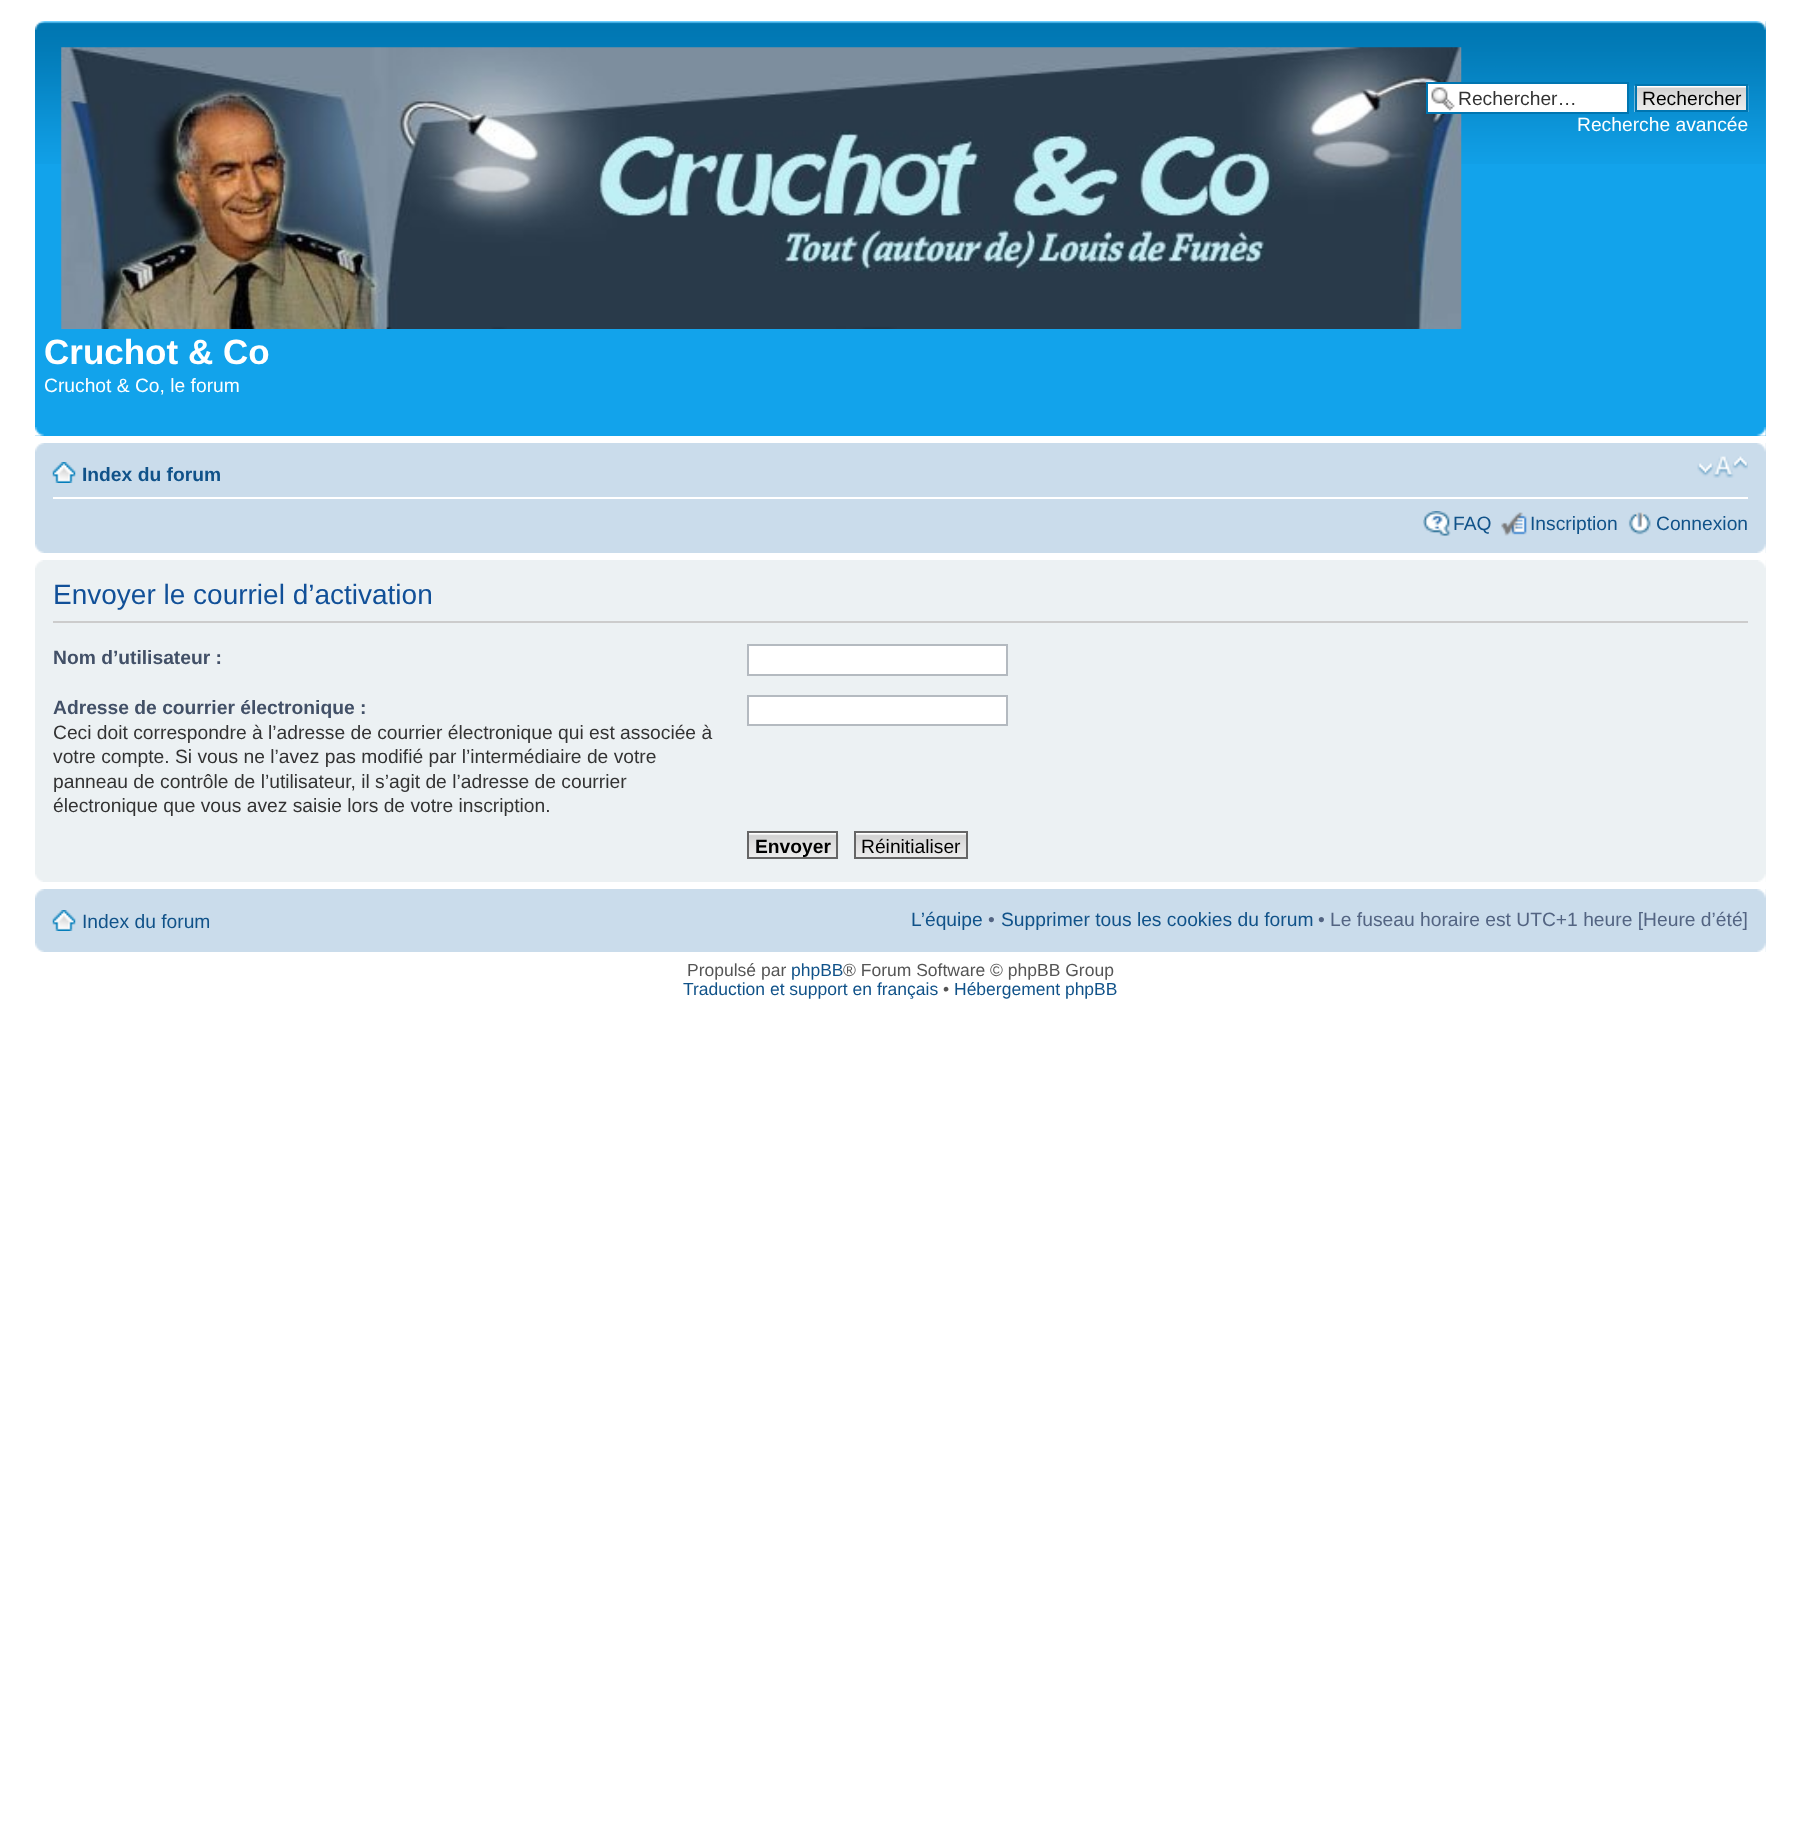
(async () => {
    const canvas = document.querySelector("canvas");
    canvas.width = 1800;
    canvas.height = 1847;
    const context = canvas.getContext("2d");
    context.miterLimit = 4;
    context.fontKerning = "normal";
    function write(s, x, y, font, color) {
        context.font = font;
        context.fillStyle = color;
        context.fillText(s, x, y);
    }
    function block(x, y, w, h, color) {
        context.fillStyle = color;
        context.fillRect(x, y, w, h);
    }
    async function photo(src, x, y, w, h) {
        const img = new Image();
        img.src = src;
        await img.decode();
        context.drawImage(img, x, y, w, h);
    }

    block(0, 0, 1800, 1847, "rgb(255, 255, 255)");
    block(35, 21, 1731, 415, "rgb(18, 163, 235)");
    await photo("media/1.png", 35, 21, 1731, 143);
    await photo("media/2.png", 35, 21, 10, 9);
    await photo("media/3.png", 1756, 21, 10, 9);
    await photo("media/6.png", 61, 47, 1401, 282);
    block(1428, 84, 199, 28, "rgb(255, 255, 255)");
    await photo("media/4.png", 1431, 87, 24, 24);
    context.strokeStyle = "rgb(0, 117, 176)";
    context.lineWidth = 2;
    context.strokeRect(1427, 83, 201, 30);
    write("Rechercher…", 1458, 105, "19.25px Liberation Sans", "rgb(51, 51, 51)");
    await photo("media/5.png", 1634, 85, 115, 27);
    context.strokeRect(1636, 85, 111, 26);
    write("Rechercher", 1642, 105, "19.25px Liberation Sans", "rgb(0, 0, 0)");
    write("Recherche avancée", 1577, 131, "19.25px Liberation Sans", "rgb(255, 255, 255)");
    write("Cruchot & Co", 44, 364, "bold 35px Liberation Sans", "rgb(255, 255, 255)");
    write("Cruchot & Co, le forum", 44, 392, "19.25px Liberation Sans", "rgb(255, 255, 255)");
    await photo("media/7.png", 35, 427, 9, 9);
    await photo("media/8.png", 1756, 427, 10, 9);
    block(35, 443, 1731, 110, "rgb(202, 220, 235)");
    await photo("media/9.png", 35, 443, 9, 9);
    await photo("media/10.png", 1757, 443, 9, 9);
    block(53, 497, 1695, 2, "rgb(255, 255, 255)");
    await photo("media/11.png", 52, 462, 24, 21);
    write("Index du forum", 82, 481, "bold 19.25px Liberation Sans", "rgb(16, 82, 137)");
    await photo("media/12.png", 1697, 456, 51, 22);
    await photo("media/13.png", 1423, 511, 28, 25);
    write("FAQ", 1453, 530, "19.25px Liberation Sans", "rgb(16, 82, 137)");
    await photo("media/14.png", 1501, 512, 26, 24);
    write("Inscription", 1530, 530, "19.25px Liberation Sans", "rgb(16, 82, 137)");
    await photo("media/15.png", 1628, 512, 23, 23);
    write("Connexion", 1656, 530, "19.25px Liberation Sans", "rgb(16, 82, 137)");
    await photo("media/16.png", 35, 544, 9, 9);
    await photo("media/17.png", 1757, 544, 9, 9);
    block(35, 560, 1731, 322, "rgb(236, 241, 243)");
    await photo("media/18.png", 35, 560, 8, 8);
    await photo("media/19.png", 1758, 560, 8, 8);
    block(53, 621, 1695, 2, "rgb(204, 204, 204)");
    write("Envoyer le courriel d’activation", 53, 604, "28px Liberation Sans", "rgb(17, 80, 152)");
    write("Nom d’utilisateur :", 53, 664, "bold 19.25px Liberation Sans", "rgb(66, 80, 103)");
    context.fillStyle = "rgb(255, 255, 255)";
    context.beginPath();
    context.rect(748, 645, 259, 30);
    context.fill();
    context.strokeStyle = "rgb(180, 186, 192)";
    context.stroke();
    write("Adresse de courrier électronique :", 53, 714, "bold 19.25px Liberation Sans", "rgb(66, 80, 103)");
    write("Ceci doit correspondre à l’adresse de courrier électronique qui est associée à", 53, 739, "19.25px Liberation Sans", "rgb(51, 51, 51)");
    write("votre compte. Si vous ne l’avez pas modifié par l’intermédiaire de votre", 53, 763, "19.25px Liberation Sans", "rgb(51, 51, 51)");
    write("panneau de contrôle de l’utilisateur, il s’agit de l’adresse de courrier", 53, 788, "19.25px Liberation Sans", "rgb(51, 51, 51)");
    write("électronique que vous avez saisie lors de votre inscription.", 53, 812, "19.25px Liberation Sans", "rgb(51, 51, 51)");
    context.fillStyle = "rgb(255, 255, 255)";
    context.beginPath();
    context.rect(748, 696, 259, 29);
    context.fill();
    context.stroke();
    await photo("media/20.png", 749, 833, 90, 26);
    context.strokeStyle = "rgb(102, 102, 102)";
    context.strokeRect(748, 832, 89, 26);
    write("Envoyer", 755, 853, "bold 19.25px Liberation Sans", "rgb(0, 0, 0)");
    await photo("media/21.png", 856, 833, 110, 24);
    context.strokeRect(855, 832, 112, 26);
    write("Réinitialiser", 861, 853, "19.25px Liberation Sans", "rgb(0, 0, 0)");
    await photo("media/22.png", 35, 874, 8, 8);
    await photo("media/23.png", 1758, 874, 8, 8);
    block(35, 889, 1731, 63, "rgb(202, 220, 235)");
    await photo("media/24.png", 35, 889, 9, 9);
    await photo("media/25.png", 1757, 889, 9, 9);
    await photo("media/11.png", 52, 910, 24, 21);
    write("Index du forum", 82, 928, "19.25px Liberation Sans", "rgb(16, 82, 137)");
    write("L’équipe", 911, 926, "19.25px Liberation Sans", "rgb(16, 82, 137)");
    write("•", 988, 926, "19.25px Liberation Sans", "rgb(83, 100, 130)");
    write("Supprimer tous les cookies du forum", 1001, 926, "19.25px Liberation Sans", "rgb(16, 82, 137)");
    write("• Le fuseau horaire est UTC+1 heure [Heure d’été]", 1318, 926, "19.25px Liberation Sans", "rgb(83, 100, 130)");
    await photo("media/16.png", 35, 943, 9, 9);
    await photo("media/17.png", 1757, 943, 9, 9);
    write("Propulsé par", 687, 976, "17.5px Liberation Sans", "rgb(85, 85, 85)");
    write("phpBB", 791, 976, "17.5px Liberation Sans", "rgb(16, 82, 137)");
    write("® Forum Software © phpBB Group", 843, 976, "17.5px Liberation Sans", "rgb(85, 85, 85)");
    write("Traduction et support en français", 683, 995, "17.5px Liberation Sans", "rgb(16, 82, 137)");
    write("•", 943, 995, "17.5px Liberation Sans", "rgb(85, 85, 85)");
    write("Hébergement phpBB", 954, 995, "17.5px Liberation Sans", "rgb(16, 82, 137)");
})();
